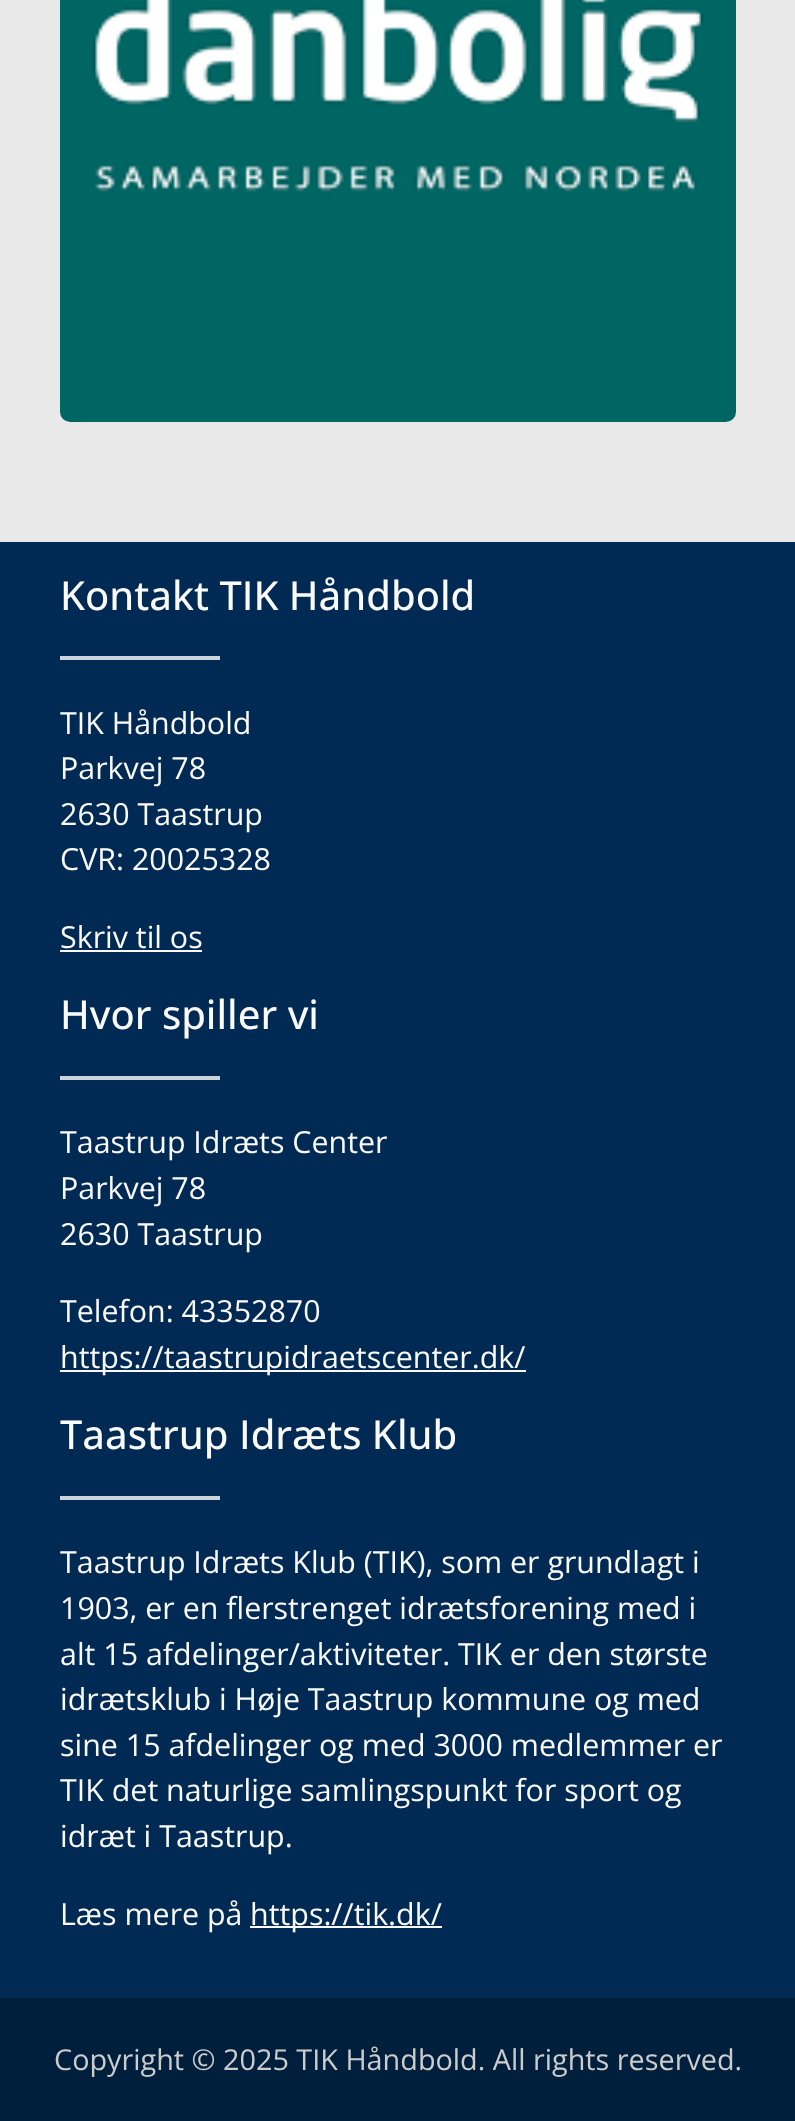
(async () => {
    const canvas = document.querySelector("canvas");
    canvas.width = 795;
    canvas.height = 2121;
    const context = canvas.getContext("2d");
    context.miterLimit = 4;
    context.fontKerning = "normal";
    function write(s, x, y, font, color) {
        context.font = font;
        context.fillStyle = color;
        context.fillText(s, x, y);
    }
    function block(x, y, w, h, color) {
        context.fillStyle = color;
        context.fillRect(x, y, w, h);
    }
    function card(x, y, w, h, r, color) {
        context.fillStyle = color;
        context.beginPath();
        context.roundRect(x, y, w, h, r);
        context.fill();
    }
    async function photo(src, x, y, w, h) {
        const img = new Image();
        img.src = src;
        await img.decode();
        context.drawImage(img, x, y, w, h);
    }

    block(0, 0, 795, 2121, "rgb(233, 233, 233)");
    card(60, -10, 676, 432, 10, "rgb(255, 255, 255)");
    await photo("media/1.png", 60, 0, 676, 422);
    block(0, 542, 795, 1456, "rgb(0, 41, 83)");
    write("Kontakt TIK Håndbold", 60, 610, "500 40px Open Sans", "rgb(250, 250, 250)");
    block(60, 656, 160, 4, "rgb(204, 212, 221)");
    write("TIK Håndbold", 60, 734, "30.4px Open Sans", "rgb(250, 250, 250)");
    write("Parkvej 78", 60, 779, "30.4px Open Sans", "rgb(250, 250, 250)");
    write("2630 Taastrup", 60, 825, "30.4px Open Sans", "rgb(250, 250, 250)");
    write("CVR: 20025328", 60, 870, "30.4px Open Sans", "rgb(250, 250, 250)");
    write("Skriv til os", 60, 948, "30.4px Open Sans", "rgb(250, 250, 250)");
    block(60, 950, 142, 2, "rgb(250, 250, 250)");
    write("Hvor spiller vi", 60, 1029, "500 40px Open Sans", "rgb(250, 250, 250)");
    block(60, 1076, 160, 4, "rgb(204, 212, 221)");
    write("Taastrup Idræts Center", 60, 1153, "30.4px Open Sans", "rgb(250, 250, 250)");
    write("Parkvej 78", 60, 1199, "30.4px Open Sans", "rgb(250, 250, 250)");
    write("2630 Taastrup", 60, 1245, "30.4px Open Sans", "rgb(250, 250, 250)");
    write("Telefon: 43352870", 60, 1322, "30.4px Open Sans", "rgb(250, 250, 250)");
    block(60, 1370, 466, 2, "rgb(250, 250, 250)");
    write("https://taastrupidraetscenter.dk/", 60, 1368, "30.4px Open Sans", "rgb(250, 250, 250)");
    write("Taastrup Idræts Klub", 60, 1449, "500 40px Open Sans", "rgb(250, 250, 250)");
    block(60, 1496, 160, 4, "rgb(204, 212, 221)");
    write("Taastrup Idræts Klub (TIK), som er grundlagt i", 60, 1573, "30.4px Open Sans", "rgb(250, 250, 250)");
    write("1903, er en flerstrenget idrætsforening med i", 60, 1619, "30.4px Open Sans", "rgb(250, 250, 250)");
    write("alt 15 afdelinger/aktiviteter. TIK er den største", 60, 1665, "30.4px Open Sans", "rgb(250, 250, 250)");
    write("idrætsklub i Høje Taastrup kommune og med", 60, 1710, "30.4px Open Sans", "rgb(250, 250, 250)");
    write("sine 15 afdelinger og med 3000 medlemmer er", 60, 1756, "30.4px Open Sans", "rgb(250, 250, 250)");
    write("TIK det naturlige samlingspunkt for sport og", 60, 1801, "30.4px Open Sans", "rgb(250, 250, 250)");
    write("idræt i Taastrup.", 60, 1847, "30.4px Open Sans", "rgb(250, 250, 250)");
    write("Læs mere på", 60, 1925, "30.4px Open Sans", "rgb(250, 250, 250)");
    block(250, 1926, 192, 2, "rgb(250, 250, 250)");
    write("https://tik.dk/", 250, 1925, "30.4px Open Sans", "rgb(250, 250, 250)");
    block(0, 1998, 795, 123, "rgb(0, 31, 61)");
    write("Copyright © 2025 TIK Håndbold. All rights reserved.", 54, 2070, "28.8px Open Sans", "rgb(204, 204, 204)");
})();
